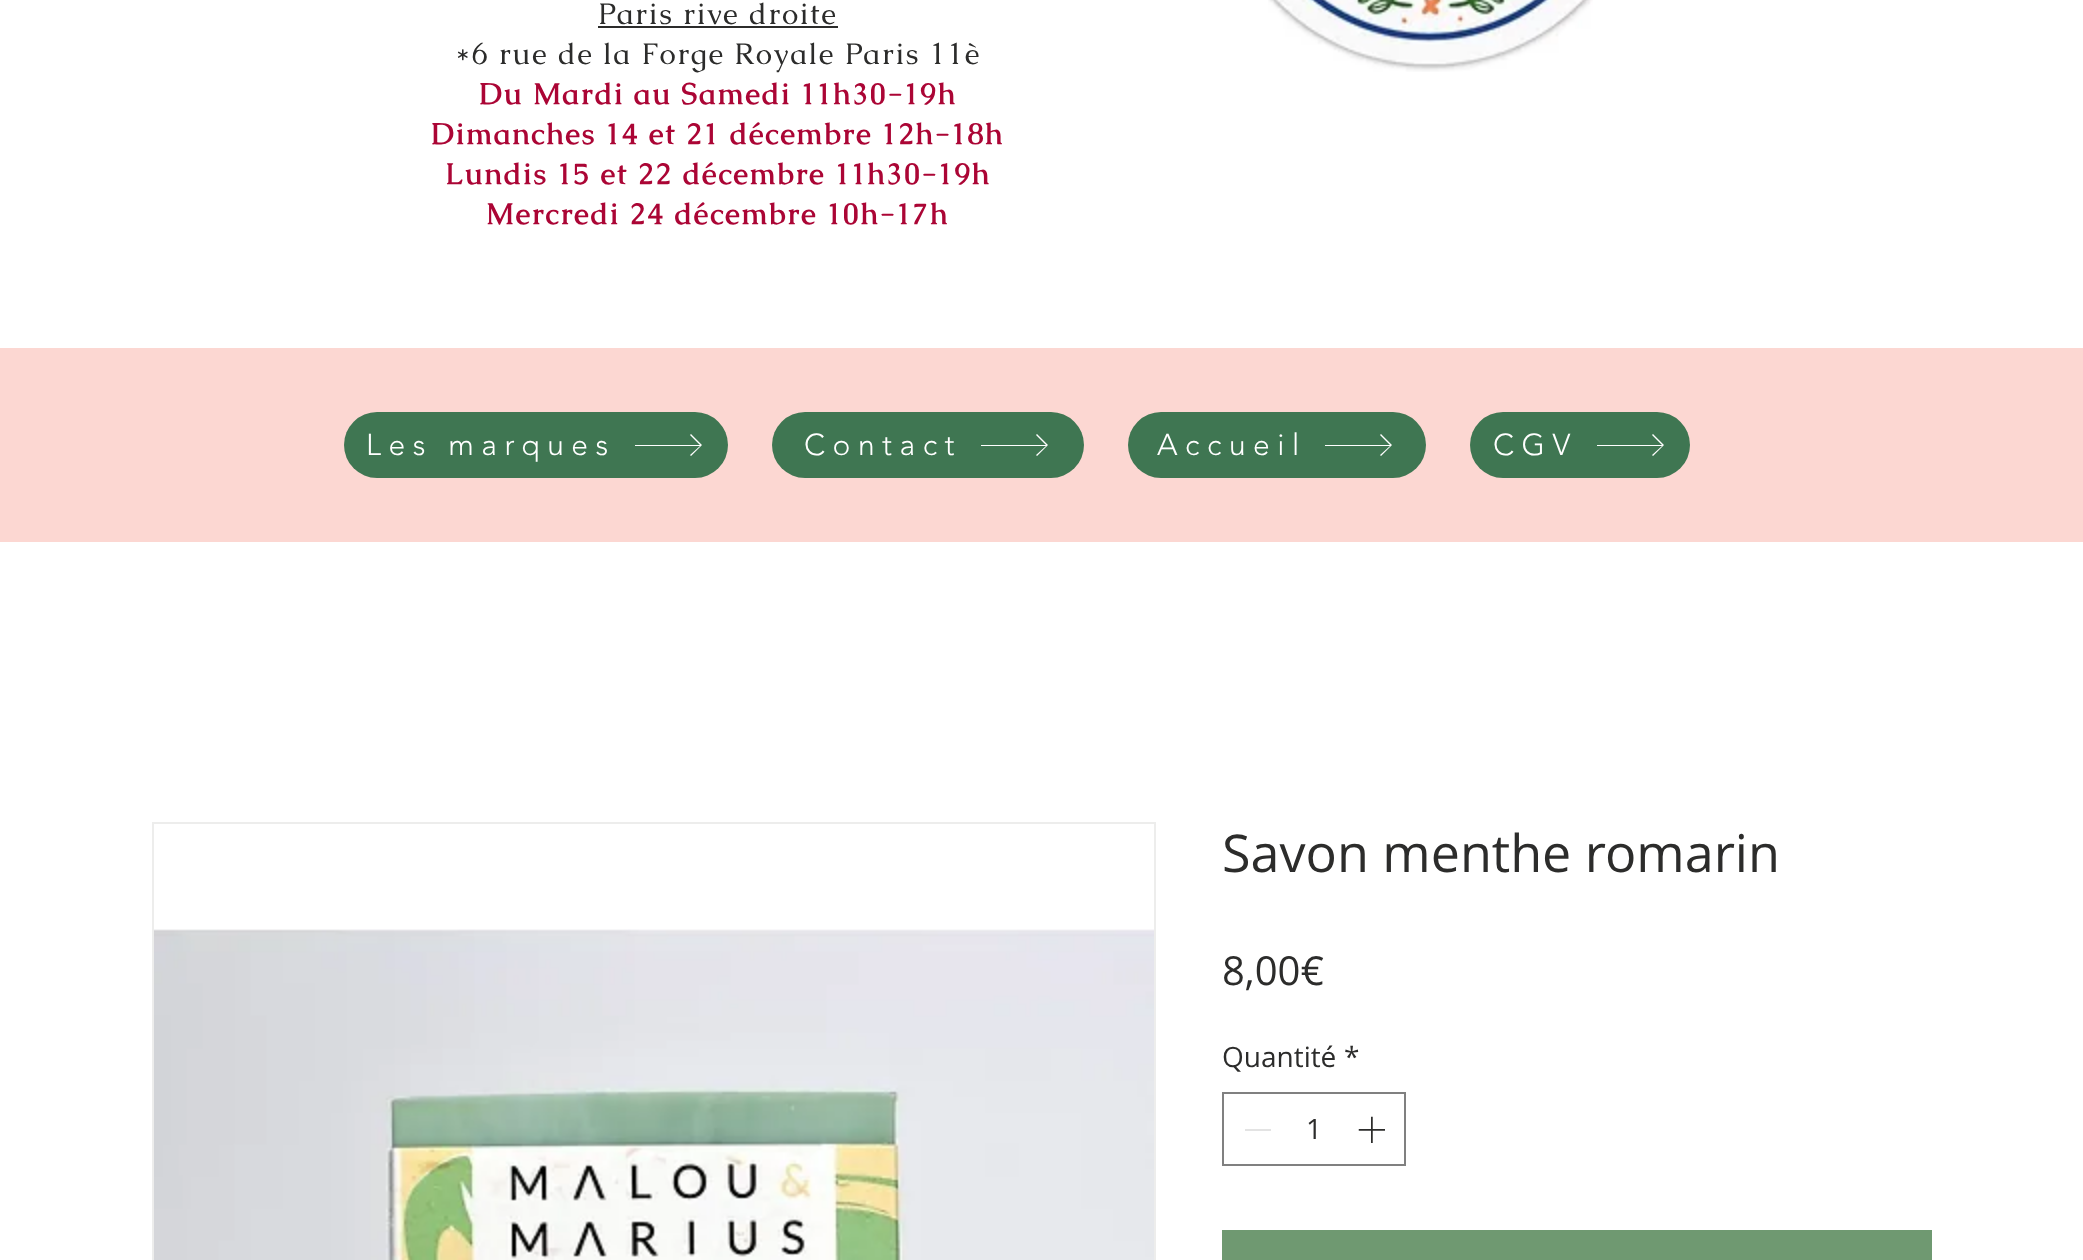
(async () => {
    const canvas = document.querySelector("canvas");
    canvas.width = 2083;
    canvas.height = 1260;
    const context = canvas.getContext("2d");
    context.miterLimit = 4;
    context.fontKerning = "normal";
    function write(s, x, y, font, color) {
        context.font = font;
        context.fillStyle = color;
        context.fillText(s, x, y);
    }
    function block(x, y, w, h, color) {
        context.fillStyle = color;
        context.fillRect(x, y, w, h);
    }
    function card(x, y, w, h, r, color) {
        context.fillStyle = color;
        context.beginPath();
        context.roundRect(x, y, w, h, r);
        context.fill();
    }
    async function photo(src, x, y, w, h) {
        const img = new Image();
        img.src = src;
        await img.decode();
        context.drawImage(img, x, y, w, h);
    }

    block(0, 0, 2083, 1260, "rgb(255, 255, 255)");
    context.letterSpacing = "1.5px";
    write("Paris rive droite", 598, 24, "30px Caudex", "rgb(44, 44, 43)");
    block(598, 26, 240, 2, "rgb(44, 44, 43)");
    write("*6 rue de la Forge Royale Paris 11è", 455, 64, "30px Caudex", "rgb(44, 44, 43)");
    write("Du Mardi au Samedi 11h30-19h", 479, 104, "bold 30px Caudex", "rgb(171, 5, 53)");
    write("Dimanches 14 et 21 décembre 12h-18h", 431, 144, "bold 30px Caudex", "rgb(171, 5, 53)");
    write("Lundis 15 et 22 décembre 11h30-19h", 445, 184, "bold 30px Caudex", "rgb(171, 5, 53)");
    write("Mercredi 24 décembre 10h-17h", 486, 224, "bold 30px Caudex", "rgb(171, 5, 53)");
    await photo("media/1.png", 1268, 0, 325, 72);
    block(0, 348, 2083, 194, "rgb(252, 215, 210)");
    card(344, 412, 384, 66, 33, "rgb(63, 118, 82)");
    context.letterSpacing = "7.5px";
    write("Les marques", 366, 455, "300 30px 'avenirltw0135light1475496'", "rgb(255, 255, 255)");
    context.beginPath();
    context.moveTo(691, 434);
    context.lineTo(690, 435);
    context.lineTo(700, 445);
    context.lineTo(635, 445);
    context.lineTo(635, 446);
    context.lineTo(700, 446);
    context.lineTo(690, 455);
    context.lineTo(691, 456);
    context.lineTo(702, 445);
    context.closePath();
    context.fill();
    card(772, 412, 312, 66, 33, "rgb(63, 118, 82)");
    write("Contact", 804, 455, "300 30px 'avenirltw0135light1475496'", "rgb(255, 255, 255)");
    context.beginPath();
    context.moveTo(1037, 434);
    context.lineTo(1036, 435);
    context.lineTo(1046, 445);
    context.lineTo(981, 445);
    context.lineTo(981, 446);
    context.lineTo(1046, 446);
    context.lineTo(1036, 455);
    context.lineTo(1037, 456);
    context.lineTo(1048, 445);
    context.closePath();
    context.fill();
    card(1128, 412, 298, 66, 33, "rgb(63, 118, 82)");
    write("Accueil", 1157, 455, "300 30px 'avenirltw0135light1475496'", "rgb(255, 255, 255)");
    context.beginPath();
    context.moveTo(1381, 434);
    context.lineTo(1380, 435);
    context.lineTo(1390, 445);
    context.lineTo(1325, 445);
    context.lineTo(1325, 446);
    context.lineTo(1390, 446);
    context.lineTo(1380, 455);
    context.lineTo(1381, 456);
    context.lineTo(1392, 445);
    context.closePath();
    context.fill();
    card(1470, 412, 220, 66, 33, "rgb(63, 118, 82)");
    write("CGV", 1493, 455, "300 30px 'avenirltw0135light1475496'", "rgb(255, 255, 255)");
    context.beginPath();
    context.moveTo(1653, 434);
    context.lineTo(1652, 435);
    context.lineTo(1662, 445);
    context.lineTo(1597, 445);
    context.lineTo(1597, 446);
    context.lineTo(1662, 446);
    context.lineTo(1652, 455);
    context.lineTo(1653, 456);
    context.lineTo(1664, 445);
    context.closePath();
    context.fill();
    context.strokeStyle = "rgb(237, 237, 236)";
    context.lineWidth = 2;
    context.strokeRect(153, 823, 1002, 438);
    await photo("media/2.png", 154, 929, 1000, 331);
    context.letterSpacing = "0px";
    write("Savon menthe romarin", 1222, 872, "52px Open Sans", "rgb(44, 44, 43)");
    write("8,00€", 1222, 985, "40px Open Sans", "rgb(44, 44, 43)");
    write("Quantité", 1222, 1067, "28px Open Sans", "rgb(44, 44, 43)");
    write("*", 1344, 1067, "28px Open Sans", "rgb(44, 44, 43)");
    context.strokeStyle = "rgb(128, 128, 128)";
    context.strokeRect(1223, 1093, 182, 72);
    block(1245, 1129, 26, 2, "rgb(227, 227, 227)");
    write("1", 1306, 1139, "28px Open Sans", "rgb(44, 44, 43)");
    await photo("media/3.png", 1358, 1116, 27, 27);
    block(1222, 1230, 710, 30, "rgb(111, 153, 113)");
})();
